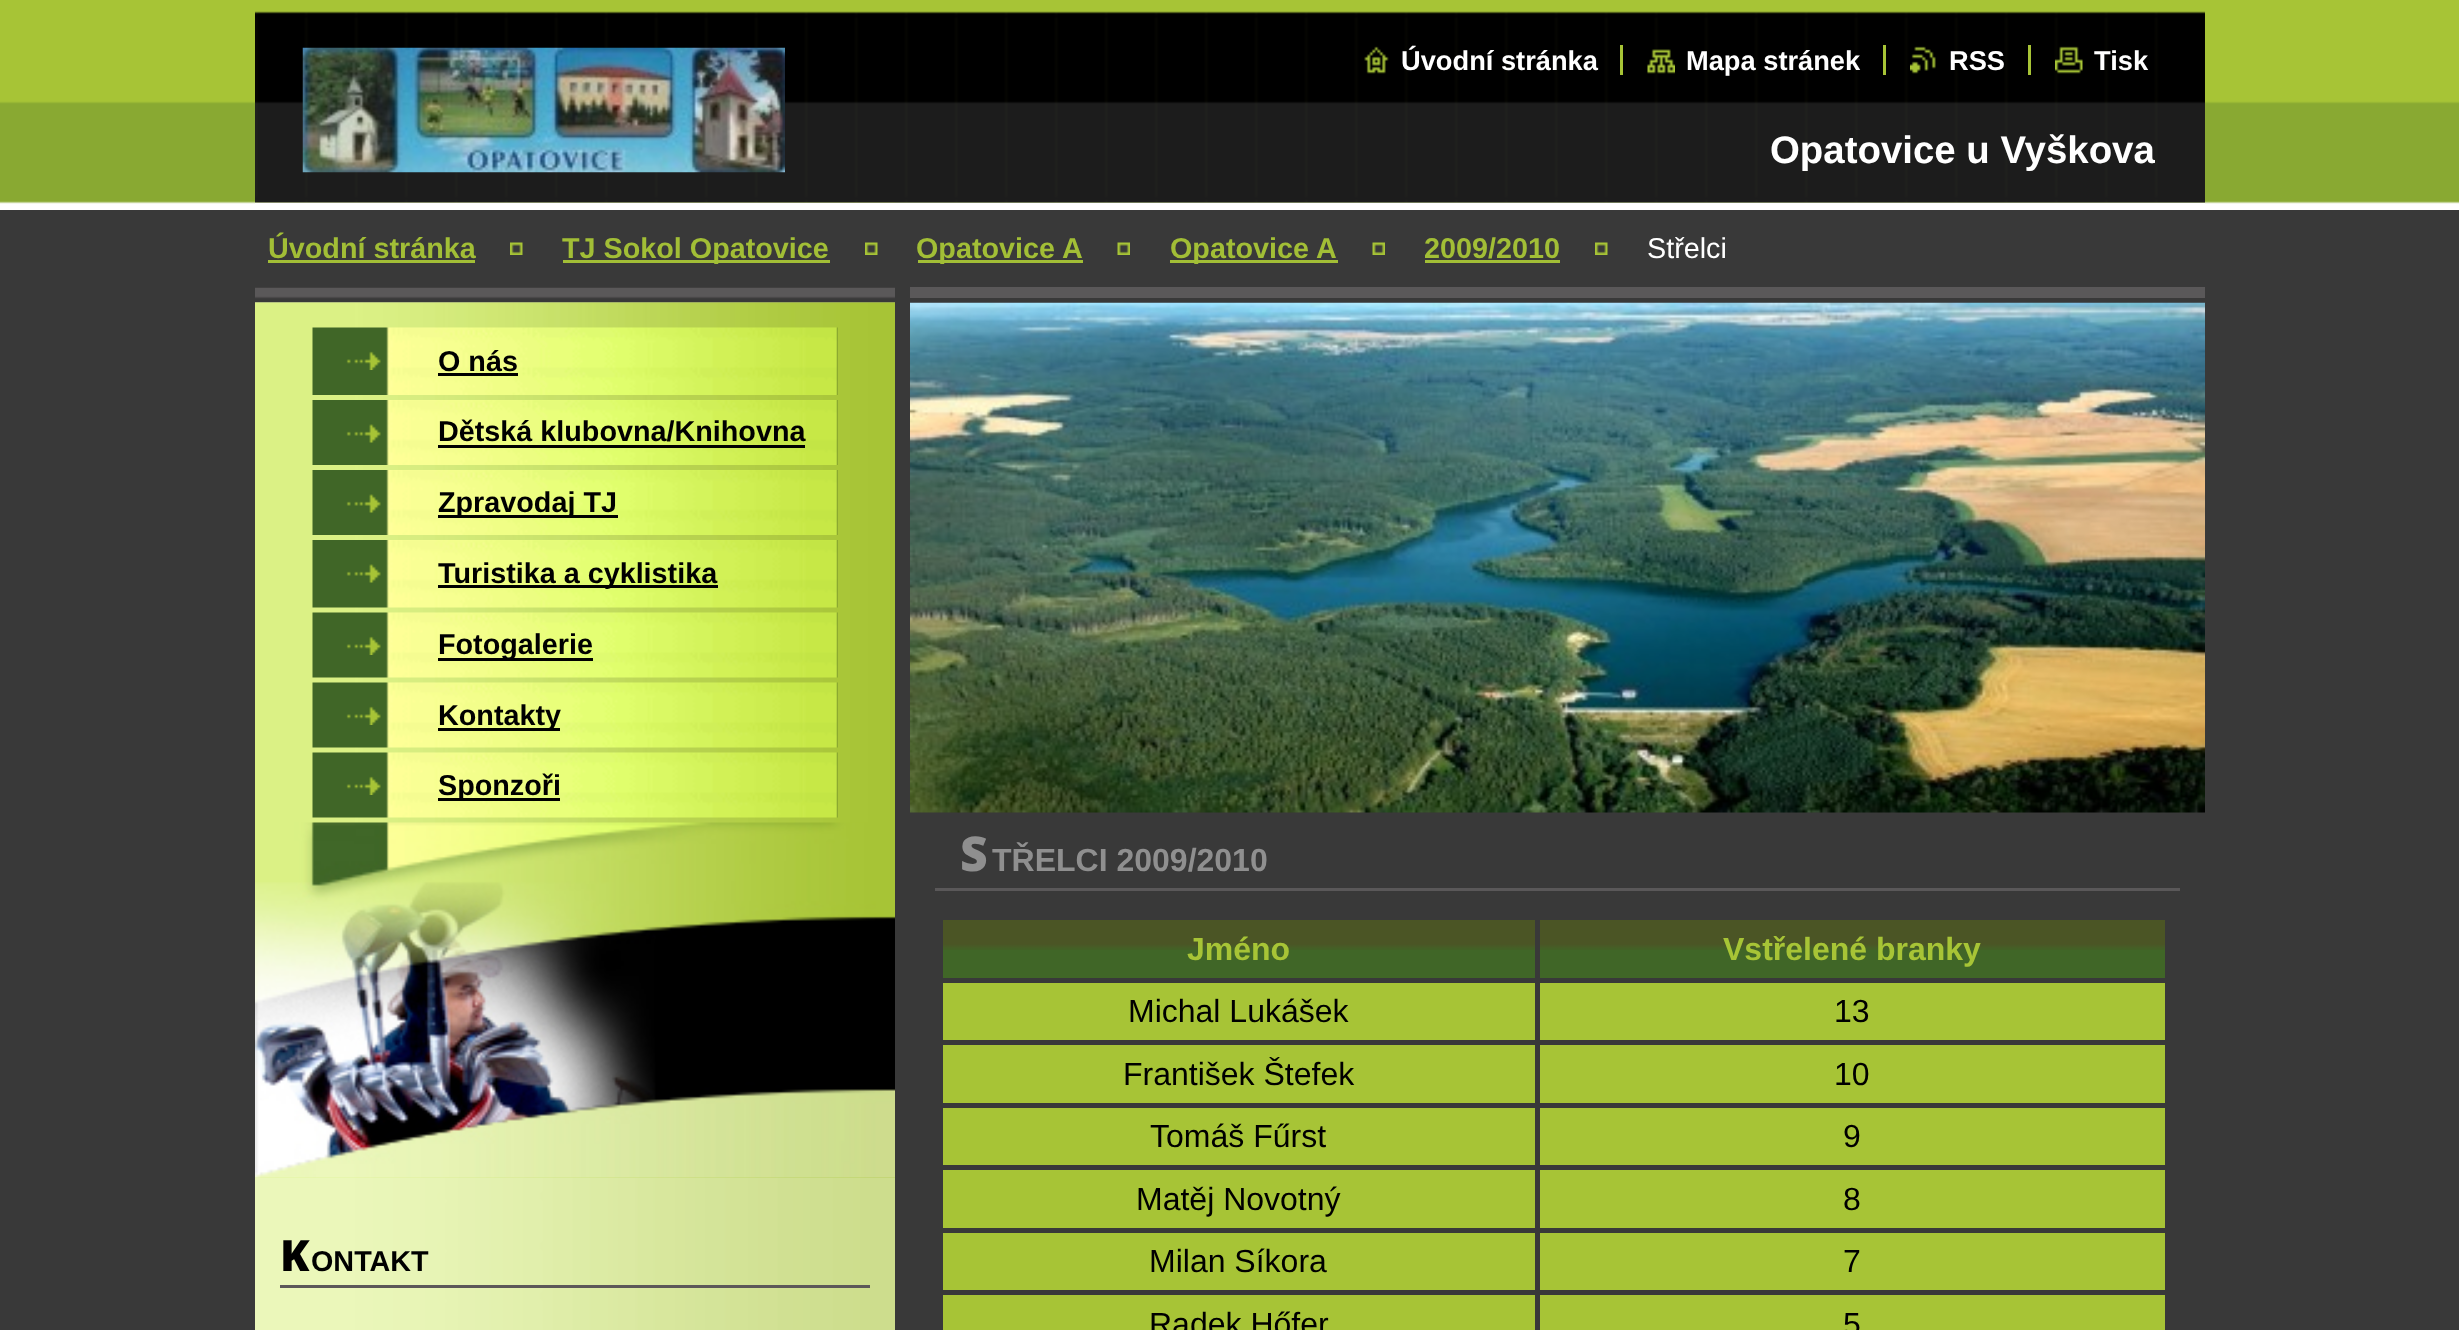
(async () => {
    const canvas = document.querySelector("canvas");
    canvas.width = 2459;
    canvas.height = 1330;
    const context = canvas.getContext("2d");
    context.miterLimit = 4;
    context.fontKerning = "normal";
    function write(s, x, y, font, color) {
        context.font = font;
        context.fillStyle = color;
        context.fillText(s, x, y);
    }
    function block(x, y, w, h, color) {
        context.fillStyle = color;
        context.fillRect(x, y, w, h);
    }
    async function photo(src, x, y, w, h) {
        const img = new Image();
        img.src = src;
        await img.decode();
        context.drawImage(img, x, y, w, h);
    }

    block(0, 0, 2459, 1330, "rgb(57, 57, 57)");
    await photo("media/1.png", 0, 0, 2459, 210);
    await photo("media/2.png", 255, 202, 640, 1128);
    await photo("media/3.png", 255, 0, 1950, 203);
    block(255, 203, 1950, 7, "rgb(255, 255, 255)");
    await photo("media/4.png", 302, 47, 483, 126);
    await photo("media/5.png", 1364, 46, 25, 28);
    write("Úvodní stránka", 1401, 70, "bold 27.25px Liberation Sans", "rgb(255, 255, 255)");
    await photo("media/6.png", 1647, 49, 28, 25);
    write("Mapa stránek", 1686, 70, "bold 27.25px Liberation Sans", "rgb(255, 255, 255)");
    block(1620, 45, 3, 30, "rgb(167, 196, 54)");
    await photo("media/7.png", 1910, 46, 26, 28);
    write("RSS", 1949, 70, "bold 27.25px Liberation Sans", "rgb(255, 255, 255)");
    block(1883, 45, 3, 30, "rgb(167, 196, 54)");
    await photo("media/8.png", 2055, 46, 28, 28);
    write("Tisk", 2094, 70, "bold 27.25px Liberation Sans", "rgb(255, 255, 255)");
    block(2028, 45, 3, 30, "rgb(167, 196, 54)");
    context.save();
    context.beginPath();
    context.rect(1343, 125, 812, 50);
    context.clip();
    write("Opatovice u Vyškova", 1770, 163, "bold 38.4px Liberation Sans", "rgb(255, 255, 255)");
    context.restore();
    block(255, 210, 640, 78, "rgb(57, 57, 57)");
    write("Úvodní stránka", 268, 258, "bold 28.75px Liberation Sans", "rgb(162, 190, 54)");
    block(268, 260, 207, 3, "rgb(162, 190, 54)");
    await photo("media/9.png", 510, 242, 13, 13);
    block(563, 260, 267, 3, "rgb(162, 190, 54)");
    write("TJ Sokol Opatovice", 562, 258, "bold 28.75px Liberation Sans", "rgb(162, 190, 54)");
    await photo("media/9.png", 865, 242, 13, 13);
    block(918, 260, 165, 3, "rgb(162, 190, 54)");
    write("Opatovice A", 916, 258, "bold 28.75px Liberation Sans", "rgb(162, 190, 54)");
    await photo("media/10.png", 1117, 242, 13, 13);
    block(1170, 260, 168, 3, "rgb(162, 190, 54)");
    write("Opatovice A", 1170, 258, "bold 28.75px Liberation Sans", "rgb(162, 190, 54)");
    await photo("media/11.png", 1372, 242, 13, 13);
    write("2009/2010", 1424, 258, "bold 28.75px Liberation Sans", "rgb(162, 190, 54)");
    block(1425, 260, 135, 3, "rgb(162, 190, 54)");
    await photo("media/9.png", 1595, 242, 13, 13);
    write("Střelci", 1647, 258, "28.75px Liberation Sans", "rgb(255, 255, 255)");
    await photo("media/12.png", 255, 287, 640, 16);
    await photo("media/13.png", 255, 302, 640, 876);
    await photo("media/14.png", 312, 327, 526, 68);
    await photo("media/15.png", 346, 351, 35, 19);
    write("O nás", 438, 371, "bold 28.75px Liberation Sans", "rgb(0, 0, 0)");
    block(438, 373, 80, 3, "rgb(0, 0, 0)");
    await photo("media/16.png", 312, 400, 526, 65);
    await photo("media/17.png", 346, 424, 35, 19);
    write("Dětská klubovna/Knihovna", 438, 441, "bold 28.75px Liberation Sans", "rgb(0, 0, 0)");
    block(438, 445, 367, 3, "rgb(0, 0, 0)");
    await photo("media/18.png", 312, 470, 526, 65);
    await photo("media/17.png", 346, 494, 35, 19);
    block(438, 515, 180, 3, "rgb(0, 0, 0)");
    write("Zpravodaj TJ", 438, 512, "bold 28.75px Liberation Sans", "rgb(0, 0, 0)");
    await photo("media/19.png", 312, 540, 526, 68);
    await photo("media/17.png", 346, 564, 35, 19);
    block(438, 585, 280, 3, "rgb(0, 0, 0)");
    write("Turistika a cyklistika", 438, 583, "bold 28.75px Liberation Sans", "rgb(0, 0, 0)");
    await photo("media/20.png", 312, 612, 526, 66);
    await photo("media/15.png", 346, 636, 35, 19);
    block(438, 658, 155, 3, "rgb(0, 0, 0)");
    write("Fotogalerie", 438, 654, "bold 28.75px Liberation Sans", "rgb(0, 0, 0)");
    await photo("media/21.png", 312, 682, 526, 66);
    await photo("media/15.png", 346, 706, 35, 19);
    block(438, 728, 122, 3, "rgb(0, 0, 0)");
    write("Kontakty", 438, 725, "bold 28.75px Liberation Sans", "rgb(0, 0, 0)");
    await photo("media/22.png", 312, 752, 526, 66);
    await photo("media/15.png", 346, 776, 35, 19);
    block(438, 798, 122, 3, "rgb(0, 0, 0)");
    write("Sponzoři", 438, 795, "bold 28.75px Liberation Sans", "rgb(0, 0, 0)");
    await photo("media/23.png", 255, 822, 640, 356);
    block(280, 1285, 590, 3, "rgb(92, 88, 89)");
    write("K", 280, 1271, "900 43px Noto Sans", "rgb(0, 0, 0)");
    write("ONTAKT", 311, 1271, "bold 28.75px Liberation Sans", "rgb(0, 0, 0)");
    block(910, 287, 1295, 11, "rgb(90, 88, 89)");
    await photo("media/24.png", 910, 302, 1295, 511);
    block(935, 888, 1245, 3, "rgb(90, 88, 89)");
    write("S", 960, 871, "900 48px Noto Sans", "rgb(143, 143, 143)");
    write("TŘELCI 2009/2010", 992, 871, "bold 32px Liberation Sans", "rgb(143, 143, 143)");
    block(943, 950, 592, 28, "rgb(64, 102, 39)");
    await photo("media/25.png", 943, 920, 592, 30);
    write("Jméno", 1187, 960, "bold 32px Liberation Sans", "rgb(167, 196, 54)");
    block(1540, 950, 625, 28, "rgb(64, 102, 39)");
    await photo("media/26.png", 1540, 920, 625, 30);
    write("Vstřelené branky", 1723, 960, "bold 32px Liberation Sans", "rgb(167, 196, 54)");
    block(943, 983, 592, 57, "rgb(167, 196, 54)");
    write("Michal Lukášek", 1128, 1022, "32px Liberation Sans", "rgb(0, 0, 0)");
    block(1540, 983, 625, 57, "rgb(167, 196, 54)");
    write("13", 1834, 1022, "32px Liberation Sans", "rgb(0, 0, 0)");
    block(943, 1045, 592, 58, "rgb(167, 196, 54)");
    write("František Štefek", 1123, 1085, "32px Liberation Sans", "rgb(0, 0, 0)");
    block(1540, 1045, 625, 58, "rgb(167, 196, 54)");
    write("10", 1834, 1085, "32px Liberation Sans", "rgb(0, 0, 0)");
    block(943, 1108, 592, 57, "rgb(167, 196, 54)");
    write("Tomáš Fűrst", 1150, 1147, "32px Liberation Sans", "rgb(0, 0, 0)");
    block(1540, 1108, 625, 57, "rgb(167, 196, 54)");
    write("9", 1843, 1147, "32px Liberation Sans", "rgb(0, 0, 0)");
    block(943, 1170, 592, 58, "rgb(167, 196, 54)");
    write("Matěj Novotný", 1136, 1210, "32px Liberation Sans", "rgb(0, 0, 0)");
    block(1540, 1170, 625, 58, "rgb(167, 196, 54)");
    write("8", 1843, 1210, "32px Liberation Sans", "rgb(0, 0, 0)");
    block(943, 1233, 592, 57, "rgb(167, 196, 54)");
    write("Milan Síkora", 1149, 1272, "32px Liberation Sans", "rgb(0, 0, 0)");
    block(1540, 1233, 625, 57, "rgb(167, 196, 54)");
    write("7", 1843, 1272, "32px Liberation Sans", "rgb(0, 0, 0)");
    block(943, 1295, 592, 35, "rgb(167, 196, 54)");
    write("Radek Hőfer", 1149, 1335, "32px Liberation Sans", "rgb(0, 0, 0)");
    block(1540, 1295, 625, 35, "rgb(167, 196, 54)");
    write("5", 1843, 1335, "32px Liberation Sans", "rgb(0, 0, 0)");
})();
